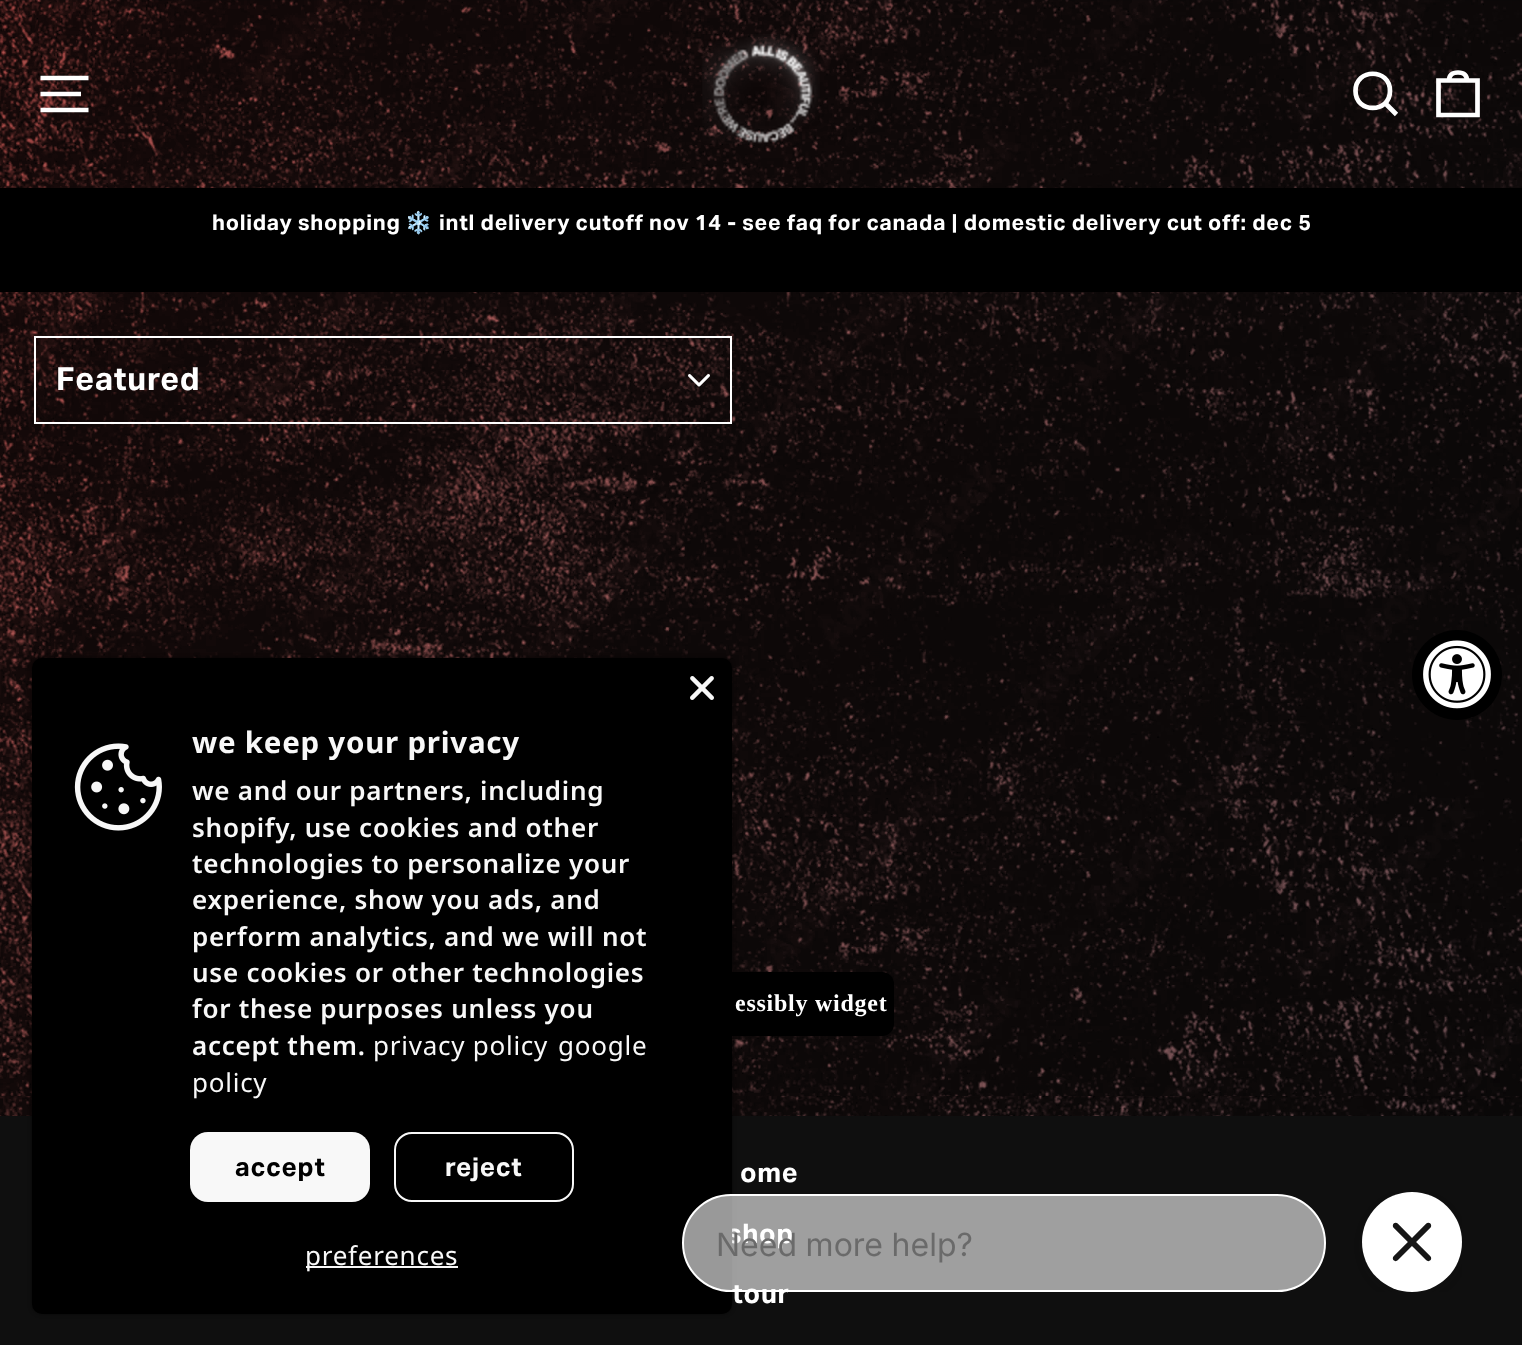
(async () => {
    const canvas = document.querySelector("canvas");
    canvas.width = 1522;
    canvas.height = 1345;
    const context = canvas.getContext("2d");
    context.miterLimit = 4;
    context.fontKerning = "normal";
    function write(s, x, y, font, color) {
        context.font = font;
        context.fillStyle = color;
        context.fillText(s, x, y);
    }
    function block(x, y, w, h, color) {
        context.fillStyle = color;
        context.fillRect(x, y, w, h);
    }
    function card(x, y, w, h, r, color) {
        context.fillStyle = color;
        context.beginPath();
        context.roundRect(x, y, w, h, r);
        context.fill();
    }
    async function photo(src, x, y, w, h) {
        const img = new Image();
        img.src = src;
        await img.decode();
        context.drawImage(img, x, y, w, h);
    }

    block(0, 0, 1522, 1345, "rgb(255, 255, 255)");
    await photo("media/1.png", 0, 0, 1522, 1116);
    context.beginPath();
    context.moveTo(40.5, 78);
    context.lineTo(88.5, 78);
    context.moveTo(40.5, 94);
    context.lineTo(81, 94);
    context.moveTo(40.5, 110);
    context.lineTo(88.5, 110);
    context.strokeStyle = "rgb(255, 255, 255)";
    context.lineWidth = 4.7;
    context.stroke();
    await photo("media/2.png", 702, 34, 118, 110);
    context.beginPath();
    context.moveTo(1390, 91);
    context.bezierCurveTo(1390, 113.5, 1355.5, 113.5, 1355.5, 91);
    context.bezierCurveTo(1355.5, 68, 1390, 68, 1390, 91);
    context.closePath();
    context.moveTo(1396.5, 114.5);
    context.lineTo(1385.5, 103.5);
    context.stroke();
    context.beginPath();
    context.moveTo(1438.5, 80.5);
    context.lineTo(1477.5, 80.5);
    context.lineTo(1477.5, 115);
    context.lineTo(1438.5, 115);
    context.closePath();
    context.moveTo(1449, 81);
    context.bezierCurveTo(1449, 74, 1453, 72.5, 1458, 72.5);
    context.bezierCurveTo(1463, 72.5, 1467, 74, 1467, 81);
    context.stroke();
    block(0, 188, 1522, 104, "rgb(0, 0, 0)");
    context.letterSpacing = "0.75px";
    write("holiday shopping", 212, 230, "bold 21.6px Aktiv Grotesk", "rgb(255, 255, 255)");
    write("❄️", 405, 230, "bold 21.6px Noto Color Emoji", "rgb(255, 255, 255)");
    write("intl delivery cutoff nov 14 - see faq for canada | domestic delivery cut off: dec 5", 439, 230, "bold 21.6px Aktiv Grotesk", "rgb(255, 255, 255)");
    await photo("media/3.png", 688, 374, 22, 13);
    context.lineWidth = 2;
    context.strokeRect(35, 337, 696, 86);
    write("Featured", 56, 390, "bold 32px Aktiv Grotesk", "rgb(255, 255, 255)");
    card(628, 972, 266, 64, 12, "rgb(0, 0, 0)");
    write("essibly widget", 735, 1011, "bold 24px Liberation Serif", "rgb(255, 255, 255)");
    block(0, 1116, 1522, 229, "rgb(15, 15, 15)");
    write("ome", 740, 1182, "bold 27px Aktiv Grotesk", "rgb(255, 255, 255)");
    write("shop", 727, 1243, "bold 27px Aktiv Grotesk", "rgb(255, 255, 255)");
    write("tour", 732, 1303, "bold 27px Aktiv Grotesk", "rgb(255, 255, 255)");
    context.fillStyle = "rgb(0, 0, 0)";
    context.beginPath();
    context.arc(1457, 675, 45, 0, Math.PI * 2);
    context.fill();
    await photo("media/4.png", 1423, 640, 68, 69);
    context.fillStyle = "rgba(0, 0, 0, 0.5)";
    context.filter = "blur(2px)";
    context.beginPath();
    context.roundRect(32, 658, 700, 656, 10);
    context.fill();
    context.filter = "none";
    card(32, 658, 700, 656, 10, "rgb(0, 0, 0)");
    await photo("media/5.png", 690, 676, 24, 24);
    await photo("media/6.png", 74, 743, 88, 88);
    write("we keep your privacy", 192, 753, "bold 29.5px Noto Sans", "rgb(248, 248, 248)");
    write("we and our partners, including", 192, 800, "600 26px Noto Sans", "rgb(248, 248, 248)");
    write("shopify, use cookies and other", 192, 837, "600 26px Noto Sans", "rgb(248, 248, 248)");
    write("technologies to personalize your", 192, 873, "600 26px Noto Sans", "rgb(248, 248, 248)");
    write("experience, show you ads, and", 192, 909, "600 26px Noto Sans", "rgb(248, 248, 248)");
    write("perform analytics, and we will not", 192, 946, "600 26px Noto Sans", "rgb(248, 248, 248)");
    write("use cookies or other technologies", 192, 982, "600 26px Noto Sans", "rgb(248, 248, 248)");
    write("for these purposes unless you", 192, 1018, "600 26px Noto Sans", "rgb(248, 248, 248)");
    write("accept them.", 192, 1055, "600 26px Noto Sans", "rgb(248, 248, 248)");
    write("privacy policy", 373, 1055, "26px Noto Sans", "rgb(248, 248, 248)");
    write("google", 558, 1055, "26px Noto Sans", "rgb(248, 248, 248)");
    write("policy", 192, 1092, "26px Noto Sans", "rgb(248, 248, 248)");
    card(190, 1132, 180, 70, 18, "rgb(248, 248, 248)");
    write("accept", 235, 1176, "bold 26px Aktiv Grotesk", "rgb(0, 0, 0)");
    context.beginPath();
    context.roundRect(395, 1133, 178, 68, 17);
    context.strokeStyle = "rgb(248, 248, 248)";
    context.stroke();
    write("reject", 445, 1176, "bold 26px Aktiv Grotesk", "rgb(248, 248, 248)");
    block(306, 1266, 152, 2, "rgb(248, 248, 248)");
    write("preferences", 305, 1265, "26px Noto Sans", "rgb(248, 248, 248)");
    await photo("media/7.png", 682, 1192, 780, 100);
})();
